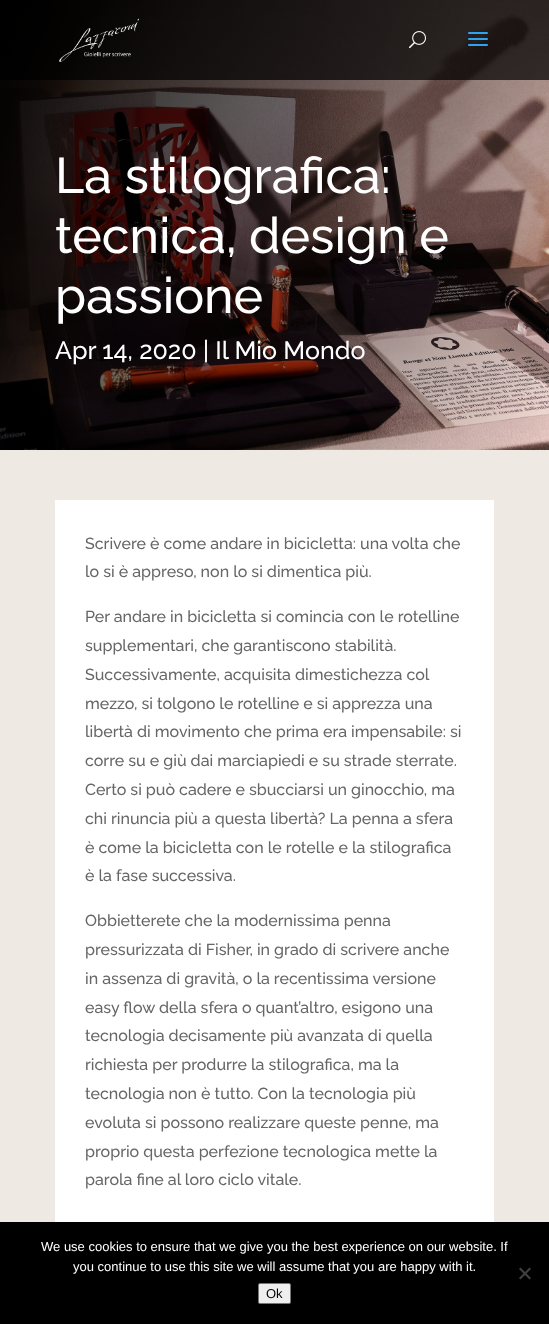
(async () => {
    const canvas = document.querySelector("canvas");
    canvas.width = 549;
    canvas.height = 1324;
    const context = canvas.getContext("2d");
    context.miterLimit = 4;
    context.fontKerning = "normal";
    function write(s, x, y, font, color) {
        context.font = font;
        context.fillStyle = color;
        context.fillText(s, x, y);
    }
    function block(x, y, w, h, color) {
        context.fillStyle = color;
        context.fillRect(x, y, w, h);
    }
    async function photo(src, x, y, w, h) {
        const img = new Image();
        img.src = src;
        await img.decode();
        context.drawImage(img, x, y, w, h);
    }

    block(0, 0, 549, 1324, "rgb(255, 255, 255)");
    await photo("media/4.png", 0, 0, 549, 450);
    block(0, 0, 549, 80, "rgba(0, 0, 0, 0.7)");
    await photo("media/1.png", 59, 18, 80, 44);
    await photo("media/2.png", 409, 31, 17, 18);
    await photo("media/3.png", 468, 32, 20, 14);
    write("La stilografica:", 55, 193, "100 50px Raleway", "rgb(255, 255, 255)");
    write("tecnica, design e", 55, 253, "100 50px Raleway", "rgb(255, 255, 255)");
    write("passione", 55, 313, "100 50px Raleway", "rgb(255, 255, 255)");
    write("Apr 14, 2020 | Il Mio Mondo", 55, 359, "100 25px Raleway", "rgb(255, 255, 255)");
    block(0, 450, 549, 772, "rgb(239, 233, 228)");
    block(55, 500, 439, 722, "rgb(255, 255, 255)");
    write("Scrivere è come andare in bicicletta: una volta che", 85, 549, "100 16px Raleway", "rgb(102, 102, 102)");
    write("lo si è appreso, non lo si dimentica più.", 85, 577, "100 16px Raleway", "rgb(102, 102, 102)");
    write("Per andare in bicicletta si comincia con le rotelline", 85, 622, "100 16px Raleway", "rgb(102, 102, 102)");
    write("supplementari, che garantiscono stabilità.", 85, 651, "100 16px Raleway", "rgb(102, 102, 102)");
    write("Successivamente, acquisita dimestichezza col", 85, 680, "100 16px Raleway", "rgb(102, 102, 102)");
    write("mezzo, si tolgono le rotelline e si apprezza una", 85, 709, "100 16px Raleway", "rgb(102, 102, 102)");
    write("libertà di movimento che prima era impensabile: si", 85, 737, "100 16px Raleway", "rgb(102, 102, 102)");
    write("corre su e giù dai marciapiedi e su strade sterrate.", 85, 766, "100 16px Raleway", "rgb(102, 102, 102)");
    write("Certo si può cadere e sbucciarsi un ginocchio, ma", 85, 795, "100 16px Raleway", "rgb(102, 102, 102)");
    write("chi rinuncia più a questa libertà? La penna a sfera", 85, 824, "100 16px Raleway", "rgb(102, 102, 102)");
    write("è come la bicicletta con le rotelle e la stilografica", 85, 853, "100 16px Raleway", "rgb(102, 102, 102)");
    write("è la fase successiva.", 85, 881, "100 16px Raleway", "rgb(102, 102, 102)");
    write("Obbietterete che la modernissima penna", 85, 926, "100 16px Raleway", "rgb(102, 102, 102)");
    write("pressurizzata di Fisher, in grado di scrivere anche", 85, 955, "100 16px Raleway", "rgb(102, 102, 102)");
    write("in assenza di gravità, o la recentissima versione", 85, 984, "100 16px Raleway", "rgb(102, 102, 102)");
    write("easy flow della sfera o quant’altro, esigono una", 85, 1013, "100 16px Raleway", "rgb(102, 102, 102)");
    write("tecnologia decisamente più avanzata di quella", 85, 1041, "100 16px Raleway", "rgb(102, 102, 102)");
    write("richiesta per produrre la stilografica, ma la", 85, 1070, "100 16px Raleway", "rgb(102, 102, 102)");
    write("tecnologia non è tutto. Con la tecnologia più", 85, 1099, "100 16px Raleway", "rgb(102, 102, 102)");
    write("evoluta si possono realizzare queste penne, ma", 85, 1128, "100 16px Raleway", "rgb(102, 102, 102)");
    write("proprio questa perfezione tecnologica mette la", 85, 1157, "100 16px Raleway", "rgb(102, 102, 102)");
    write("parola fine al loro ciclo vitale.", 85, 1185, "100 16px Raleway", "rgb(102, 102, 102)");
    block(0, 1222, 549, 102, "rgb(0, 0, 0)");
    write("We use cookies to ensure that we give you the best experience on our website. If", 41, 1251, "13px Liberation Sans", "rgb(255, 255, 255)");
    write("you continue to use this site we will assume that you are happy with it.", 73, 1271, "13px Liberation Sans", "rgb(255, 255, 255)");
    context.fillStyle = "rgb(64, 64, 64)";
    context.beginPath();
    context.moveTo(529.5, 1267.5);
    context.lineTo(531, 1269);
    context.lineTo(520.5, 1279.5);
    context.lineTo(519, 1278);
    context.closePath();
    context.fill();
    context.beginPath();
    context.moveTo(519, 1269);
    context.lineTo(520.5, 1267.5);
    context.lineTo(531, 1278);
    context.lineTo(529.5, 1279.5);
    context.closePath();
    context.fill();
    context.fillStyle = "rgb(239, 239, 239)";
    context.beginPath();
    context.roundRect(258.5, 1283.5, 32, 20, 1.5);
    context.fill();
    context.strokeStyle = "rgb(118, 118, 118)";
    context.stroke();
    write("Ok", 266, 1298, "13px Liberation Sans", "rgb(0, 0, 0)");
})();
